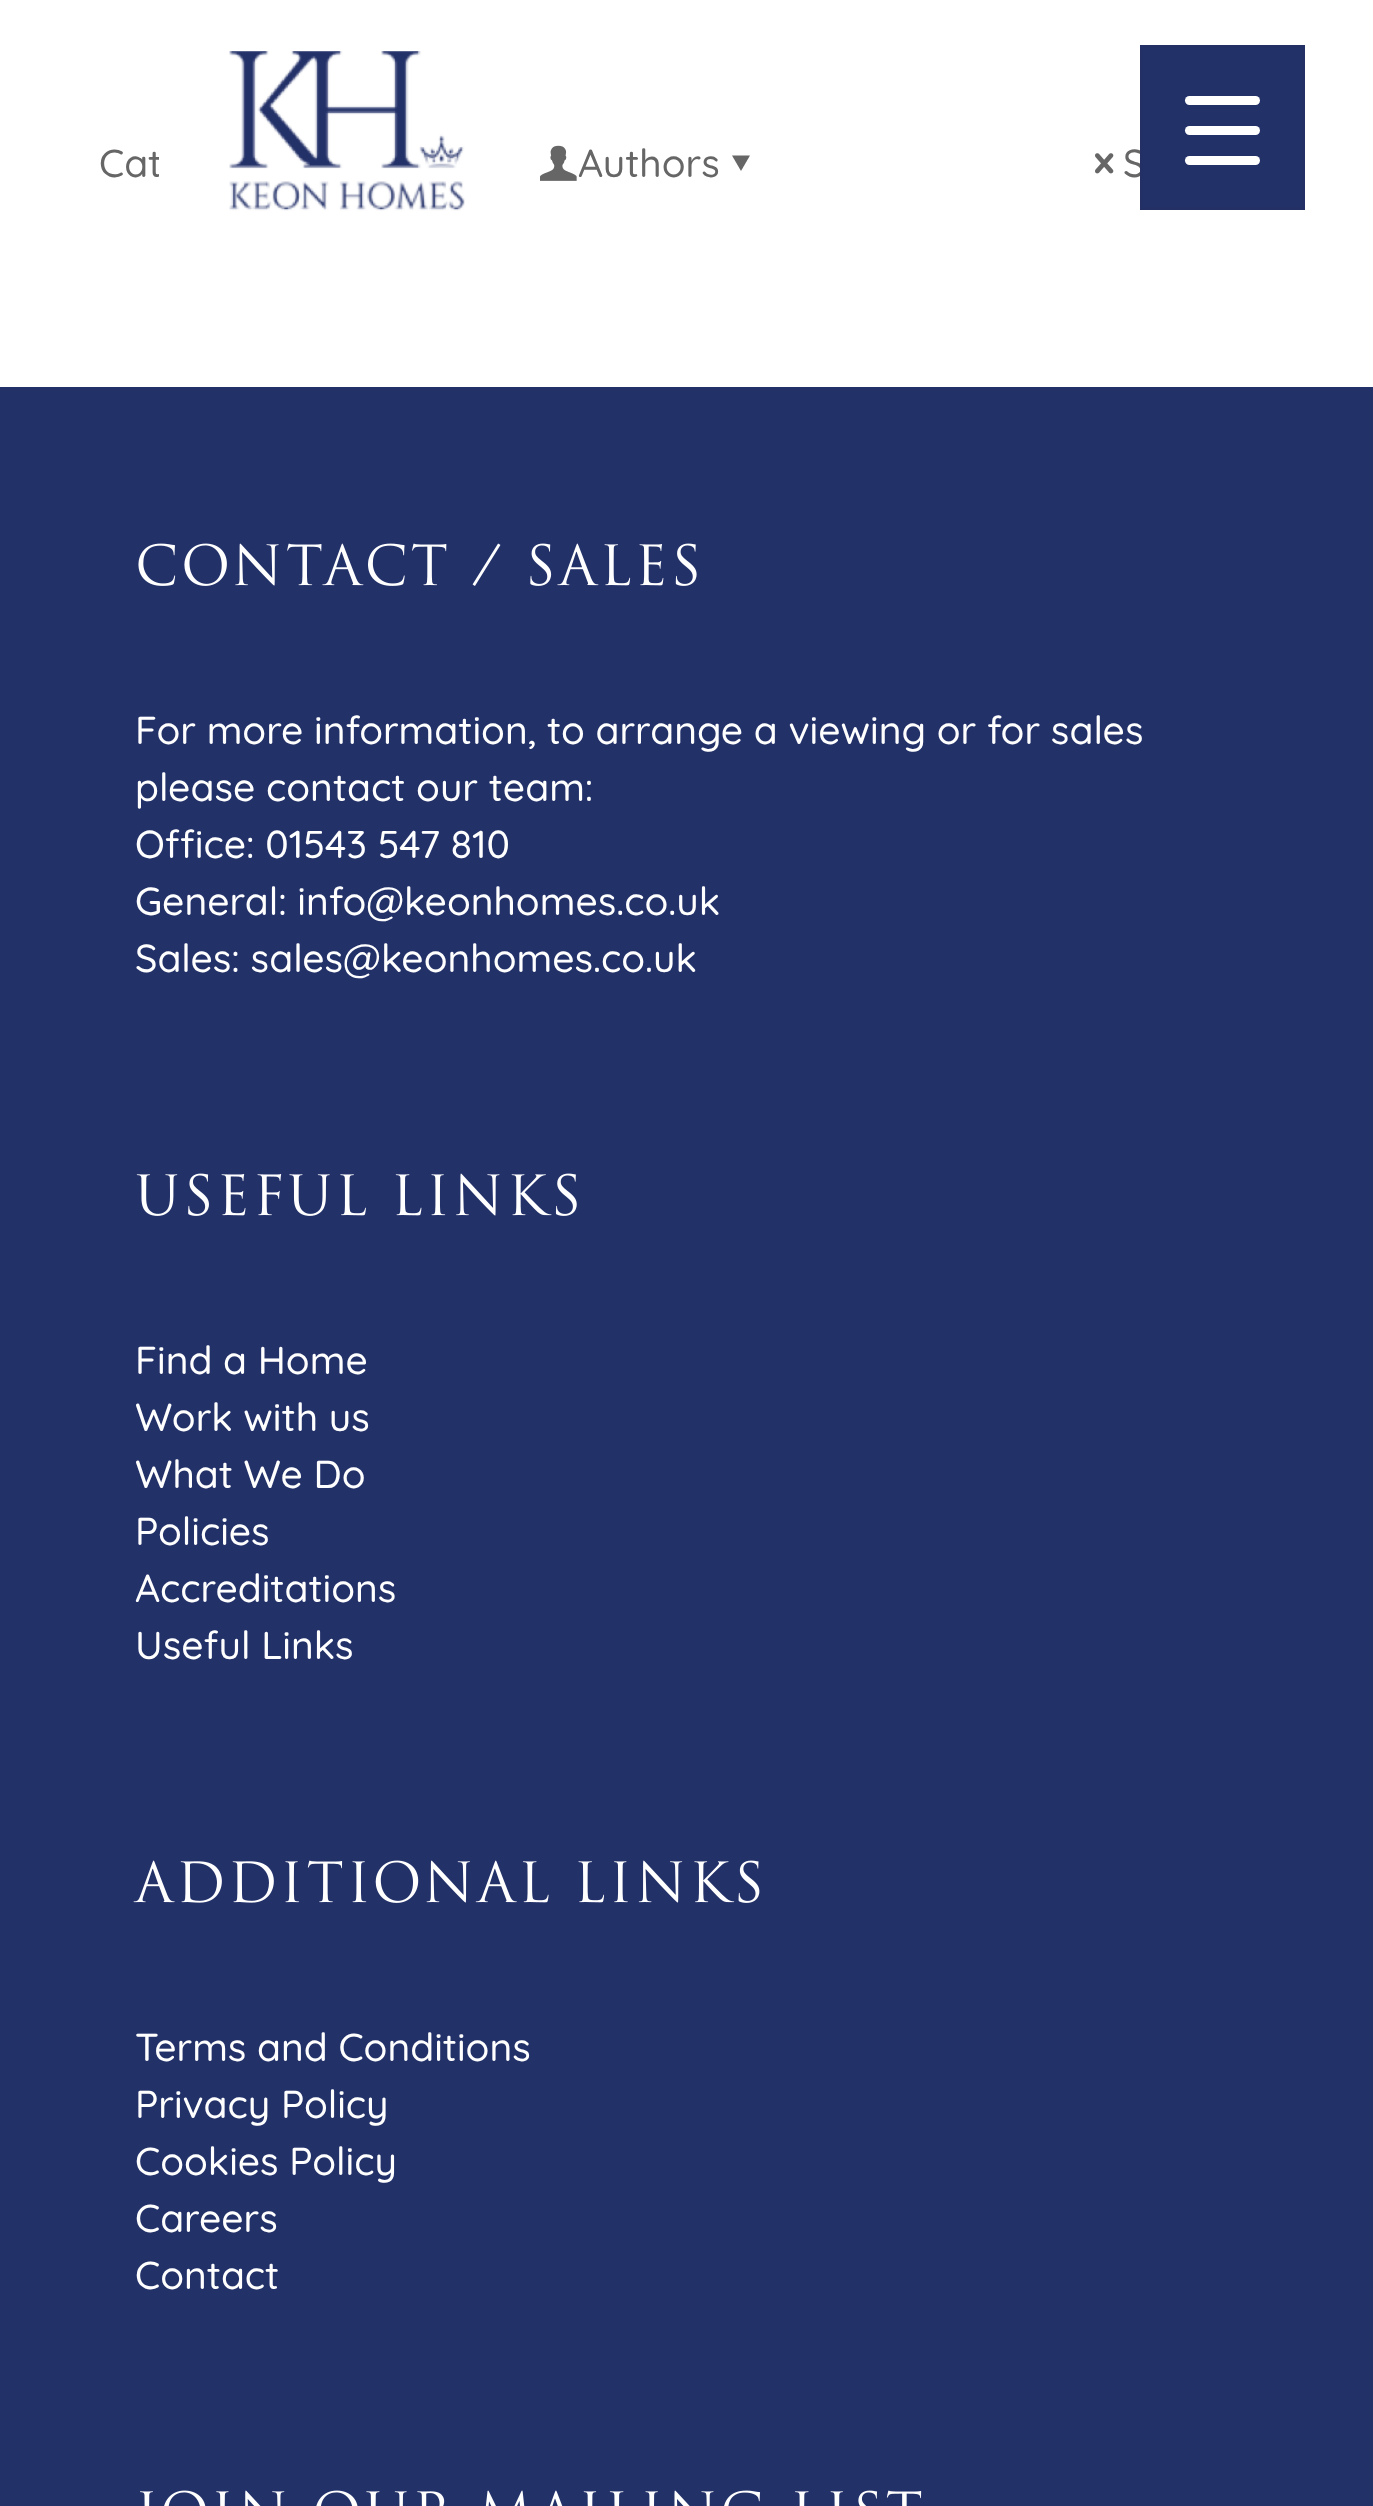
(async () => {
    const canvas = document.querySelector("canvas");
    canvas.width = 1373;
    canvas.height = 2506;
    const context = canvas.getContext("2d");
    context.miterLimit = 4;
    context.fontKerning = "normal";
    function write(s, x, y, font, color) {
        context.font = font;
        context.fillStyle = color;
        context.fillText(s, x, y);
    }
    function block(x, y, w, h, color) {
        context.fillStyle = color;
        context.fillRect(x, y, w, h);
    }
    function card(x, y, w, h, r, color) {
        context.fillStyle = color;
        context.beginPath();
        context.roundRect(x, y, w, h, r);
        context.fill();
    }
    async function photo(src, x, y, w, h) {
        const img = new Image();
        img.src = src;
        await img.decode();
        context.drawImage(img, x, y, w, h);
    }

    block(0, 0, 1373, 2506, "rgb(255, 255, 255)");
    write("S", 1123, 177, "500 39px Quicksand", "rgb(102, 102, 102)");
    context.fillStyle = "rgb(35, 49, 105)";
    context.beginPath();
    context.rect(1141.5, 46.5, 162, 162);
    context.fill();
    context.strokeStyle = "rgb(34, 48, 102)";
    context.lineWidth = 3;
    context.stroke();
    card(1185, 126, 75, 9, 4.5, "rgb(255, 255, 255)");
    card(1185, 96, 75, 9, 4.5, "rgb(255, 255, 255)");
    card(1185, 156, 75, 9, 4.5, "rgb(255, 255, 255)");
    write("Cat", 99, 177, "500 39px Quicksand", "rgb(102, 102, 102)");
    await photo("media/1.png", 159, 51, 330, 160);
    await photo("media/2.png", 540, 145, 37, 36);
    write("Authors", 578, 177, "500 39px Quicksand", "rgb(102, 102, 102)");
    context.beginPath();
    context.moveTo(750, 155.5);
    context.lineTo(741, 171);
    context.lineTo(732, 155.5);
    context.closePath();
    context.fill();
    await photo("media/3.png", 1095, 153, 19, 21);
    block(0, 387, 1373, 2119, "rgb(35, 49, 105)");
    await photo("media/4.png", 138, 543, 559, 43);
    write("For more information, to arrange a viewing or for sales", 135, 744, "500 39px Quicksand", "rgb(255, 255, 255)");
    write("please contact our team:", 135, 801, "500 39px Quicksand", "rgb(255, 255, 255)");
    write("Office: 01543 547 810", 135, 858, "500 39px Quicksand", "rgb(255, 255, 255)");
    write("General: info@keonhomes.co.uk", 135, 915, "500 39px Quicksand", "rgb(255, 255, 255)");
    write("Sales: sales@keonhomes.co.uk", 135, 972, "500 39px Quicksand", "rgb(255, 255, 255)");
    await photo("media/5.png", 136, 1173, 441, 43);
    write("Find a Home", 135, 1374, "500 39px Quicksand", "rgb(255, 255, 255)");
    write("Work with us", 135, 1431, "500 39px Quicksand", "rgb(255, 255, 255)");
    write("What We Do", 135, 1488, "500 39px Quicksand", "rgb(255, 255, 255)");
    write("Policies", 135, 1545, "500 39px Quicksand", "rgb(255, 255, 255)");
    write("Accreditations", 135, 1602, "500 39px Quicksand", "rgb(255, 255, 255)");
    write("Useful Links", 135, 1659, "500 39px Quicksand", "rgb(255, 255, 255)");
    await photo("media/6.png", 133, 1860, 627, 43);
    write("Terms and Conditions", 135, 2061, "500 39px Quicksand", "rgb(255, 255, 255)");
    write("Privacy Policy", 135, 2118, "500 39px Quicksand", "rgb(255, 255, 255)");
    write("Cookies Policy", 135, 2175, "500 39px Quicksand", "rgb(255, 255, 255)");
    write("Careers", 135, 2232, "500 39px Quicksand", "rgb(255, 255, 255)");
    write("Contact", 135, 2289, "500 39px Quicksand", "rgb(255, 255, 255)");
    await photo("media/7.png", 140, 2490, 782, 16);
})();
